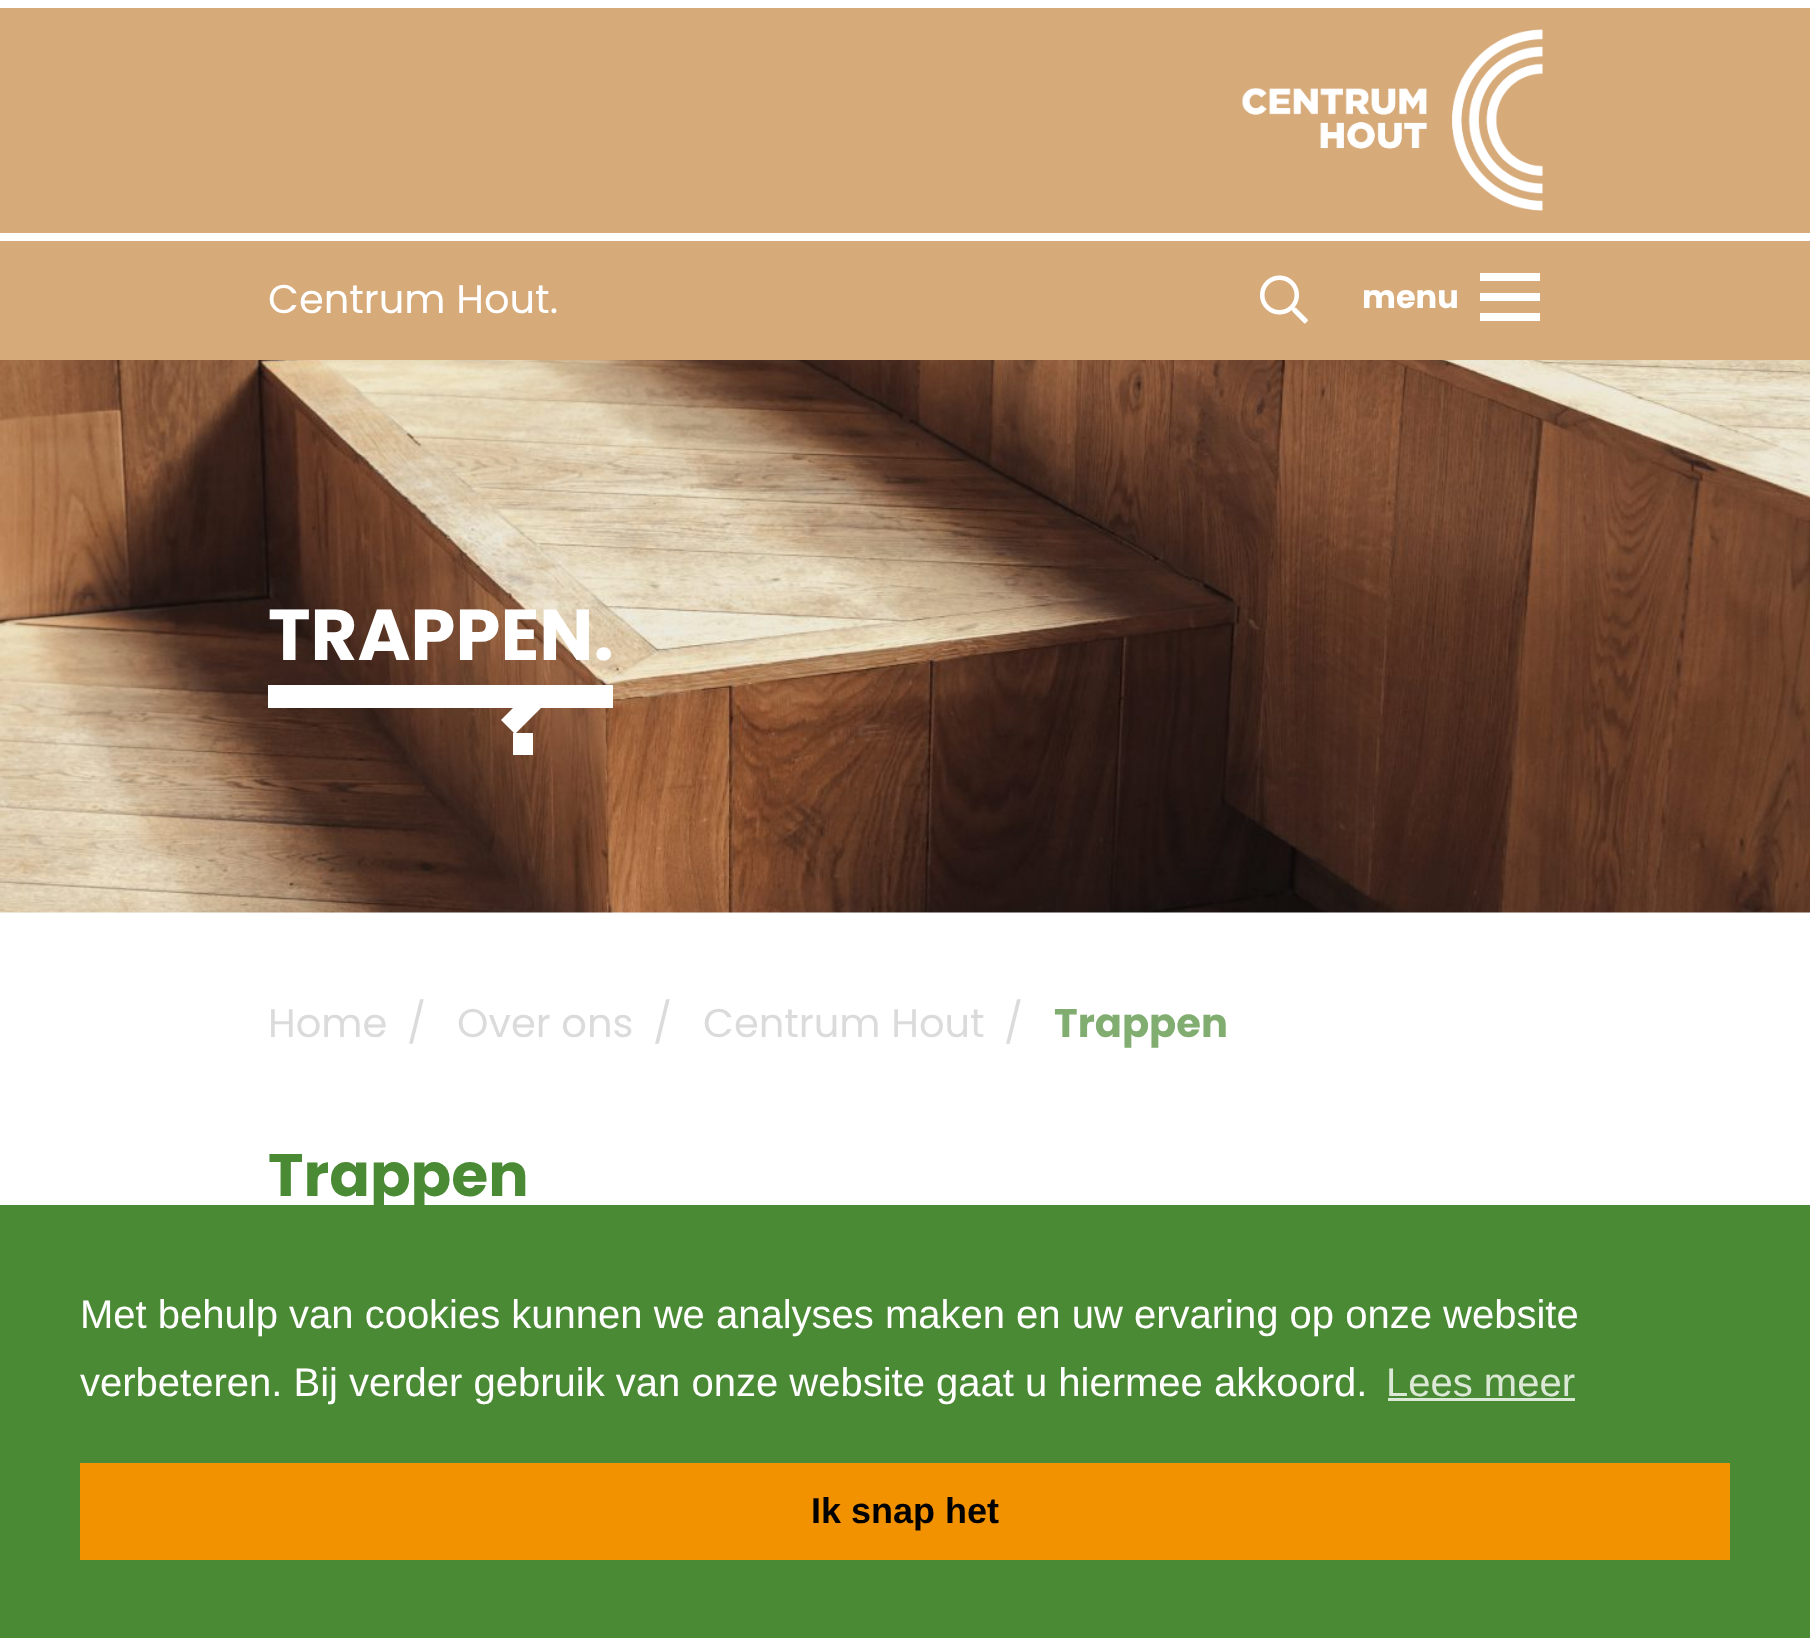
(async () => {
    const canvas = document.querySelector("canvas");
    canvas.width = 1810;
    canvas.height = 1638;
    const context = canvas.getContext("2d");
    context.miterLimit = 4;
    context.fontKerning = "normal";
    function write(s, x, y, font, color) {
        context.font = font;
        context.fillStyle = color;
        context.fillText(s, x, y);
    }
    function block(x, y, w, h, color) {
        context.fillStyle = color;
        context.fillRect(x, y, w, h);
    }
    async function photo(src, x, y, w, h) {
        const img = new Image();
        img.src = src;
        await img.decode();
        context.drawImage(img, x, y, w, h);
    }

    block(0, 0, 1810, 1638, "rgb(255, 255, 255)");
    block(0, 8, 1810, 352, "rgb(215, 170, 122)");
    block(0, 233, 1810, 8, "rgb(255, 255, 255)");
    await photo("media/1.png", 1242, 29, 301, 182);
    write("Centrum Hout.", 268, 313, "40px Poppins", "rgb(255, 255, 255)");
    await photo("media/2.png", 1260, 275, 48, 49);
    write("menu", 1362, 308, "bold 32px Poppins", "rgb(255, 255, 255)");
    block(1480, 273, 60, 8, "rgb(255, 255, 255)");
    block(1480, 293, 60, 8, "rgb(255, 255, 255)");
    block(1480, 313, 60, 8, "rgb(255, 255, 255)");
    await photo("media/3.png", 0, 360, 1810, 553);
    block(268, 685, 345, 23, "rgb(255, 255, 255)");
    block(513, 733, 20, 22, "rgb(255, 255, 255)");
    write("TRAPPEN.", 268, 660, "bold 72px Poppins", "rgb(255, 255, 255)");
    context.beginPath();
    context.moveTo(532, 689);
    context.lineTo(546, 703);
    context.lineTo(515, 734);
    context.lineTo(501, 720);
    context.closePath();
    context.fill();
    write("Home", 268, 1037, "40px Poppins", "rgb(219, 219, 219)");
    write("/", 407, 1037, "40px Poppins", "rgb(219, 219, 219)");
    write("Over ons", 457, 1037, "40px Poppins", "rgb(219, 219, 219)");
    write("/", 653, 1037, "40px Poppins", "rgb(219, 219, 219)");
    write("Centrum Hout", 703, 1037, "40px Poppins", "rgb(219, 219, 219)");
    write("/", 1004, 1037, "40px Poppins", "rgb(219, 219, 219)");
    write("Trappen", 1054, 1037, "bold 40px Poppins", "rgb(129, 173, 113)");
    write("Trappen", 268, 1196, "bold 60px Poppins", "rgb(75, 138, 52)");
    block(0, 1205, 1810, 433, "rgb(75, 138, 52)");
    write("Met behulp van cookies kunnen we analyses maken en uw ervaring op onze website", 80, 1328, "40px Liberation Sans", "rgb(255, 255, 255)");
    write("verbeteren. Bij verder gebruik van onze website gaat u hiermee akkoord.", 80, 1396, "40px Liberation Sans", "rgb(255, 255, 255)");
    write("Lees meer", 1386, 1396, "40px Liberation Sans", "rgb(219, 232, 214)");
    block(1388, 1398, 187, 3, "rgb(219, 232, 214)");
    block(80, 1463, 1650, 97, "rgb(243, 146, 0)");
    write("Ik snap het", 811, 1523, "bold 36px Liberation Sans", "rgb(0, 0, 0)");
})();
